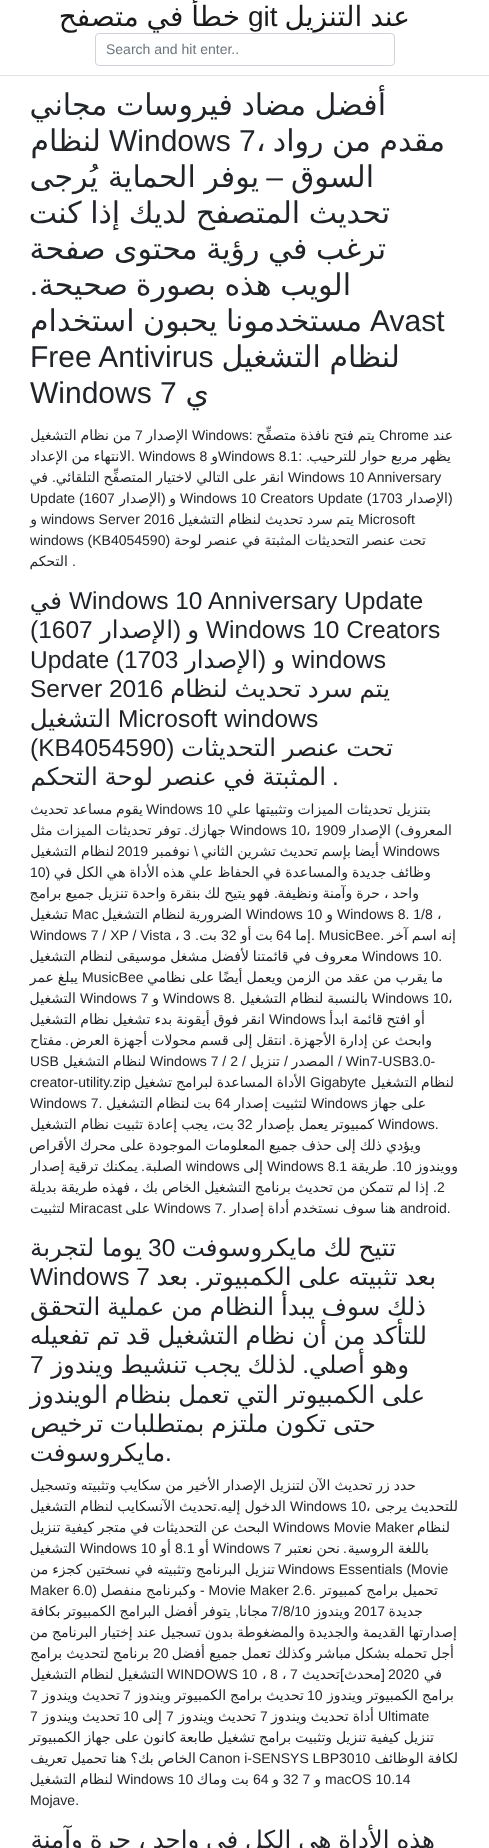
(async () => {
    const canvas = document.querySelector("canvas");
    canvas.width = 489;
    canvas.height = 1848;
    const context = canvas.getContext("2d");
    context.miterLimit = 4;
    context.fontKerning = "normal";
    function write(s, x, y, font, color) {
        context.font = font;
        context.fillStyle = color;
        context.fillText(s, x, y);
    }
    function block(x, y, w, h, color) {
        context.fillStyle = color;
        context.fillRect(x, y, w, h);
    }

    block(0, 0, 489, 1848, "rgb(255, 255, 255)");
    block(0, 75, 489, 1, "rgb(225, 226, 227)");
    context.wordSpacing = "-1px";
    context.direction = "rtl";
    write("عند التنزيل", 410, 26, "28px DejaVu Sans", "rgb(26, 26, 26)");
    context.wordSpacing = "0px";
    context.direction = "ltr";
    write("git", 248, 26, "28px Liberation Sans", "rgb(26, 26, 26)");
    context.wordSpacing = "-1px";
    context.direction = "rtl";
    write("خطأ في متصفح", 240, 26, "28px DejaVu Sans", "rgb(26, 26, 26)");
    context.beginPath();
    context.roundRect(95.5, 33.5, 299, 32, 3.5);
    context.strokeStyle = "rgb(206, 212, 218)";
    context.stroke();
    context.wordSpacing = "0px";
    context.direction = "ltr";
    write("Search and hit enter..", 106, 54, "14px Liberation Sans", "rgb(108, 117, 125)");
    context.wordSpacing = "-1px";
    context.direction = "rtl";
    write("أفضل مضاد فيروسات مجاني", 386, 115, "30px DejaVu Sans", "rgb(33, 37, 41)");
    write("مقدم من رواد", 445, 151, "30px DejaVu Sans", "rgb(33, 37, 41)");
    context.wordSpacing = "0px";
    context.direction = "ltr";
    write("،", 256, 151, "30px DejaVu Sans", "rgb(33, 37, 41)");
    write("Windows 7", 109, 151, "30px Liberation Sans", "rgb(33, 37, 41)");
    context.direction = "rtl";
    write("لنظام", 101, 151, "30px DejaVu Sans", "rgb(33, 37, 41)");
    write("السوق", 374, 187, "30px DejaVu Sans", "rgb(33, 37, 41)");
    write("–", 283, 187, "30px Liberation Sans", "rgb(33, 37, 41)");
    context.wordSpacing = "-1px";
    write("يوفر الحماية", 259, 187, "30px DejaVu Sans", "rgb(33, 37, 41)");
    context.wordSpacing = "0px";
    write("يُرجى", 98, 187, "30px DejaVu Sans", "rgb(33, 37, 41)");
    context.wordSpacing = "-1px";
    write("تحديث المتصفح لديك إذا كنت", 390, 223, "30px DejaVu Sans", "rgb(33, 37, 41)");
    write("ترغب في رؤية محتوى صفحة", 386, 259, "30px DejaVu Sans", "rgb(33, 37, 41)");
    write("الويب هذه بصورة", 351, 295, "30px DejaVu Sans", "rgb(33, 37, 41)");
    context.wordSpacing = "0px";
    write("صحيحة", 128, 295, "30px DejaVu Sans", "rgb(33, 37, 41)");
    write(".", 38, 295, "30px Liberation Sans", "rgb(33, 37, 41)");
    context.direction = "ltr";
    write("Avast", 370, 331, "30px Liberation Sans", "rgb(33, 37, 41)");
    context.wordSpacing = "-1px";
    context.direction = "rtl";
    write("مستخدمونا يحبون استخدام", 362, 331, "30px DejaVu Sans", "rgb(33, 37, 41)");
    write("لنظام التشغيل", 400, 367, "30px DejaVu Sans", "rgb(33, 37, 41)");
    context.wordSpacing = "0px";
    context.direction = "ltr";
    write("Free Antivirus", 30, 367, "30px Liberation Sans", "rgb(33, 37, 41)");
    context.direction = "rtl";
    write("ي", 209, 403, "30px DejaVu Sans", "rgb(33, 37, 41)");
    context.direction = "ltr";
    write("Windows 7", 30, 403, "30px Liberation Sans", "rgb(33, 37, 41)");
    context.direction = "rtl";
    write("عند", 453, 440, "14px DejaVu Sans", "rgb(33, 37, 41)");
    context.direction = "ltr";
    write("Chrome", 379, 440, "14px Liberation Sans", "rgb(33, 37, 41)");
    context.wordSpacing = "-0.5px";
    context.direction = "rtl";
    write("يتم فتح نافذة متصفِّح", 375, 440, "14px DejaVu Sans", "rgb(33, 37, 41)");
    context.wordSpacing = "0px";
    context.direction = "ltr";
    write("Windows:", 192, 440, "14px Liberation Sans", "rgb(33, 37, 41)");
    context.direction = "rtl";
    write("الإصدار", 188, 440, "14px DejaVu Sans", "rgb(33, 37, 41)");
    context.direction = "ltr";
    write("7", 135, 440, "14px Liberation Sans", "rgb(33, 37, 41)");
    context.wordSpacing = "-0.5px";
    context.direction = "rtl";
    write("من نظام التشغيل", 131, 440, "14px DejaVu Sans", "rgb(33, 37, 41)");
    write("يظهر مربع حوار للترحيب", 451, 461, "14px DejaVu Sans", "rgb(33, 37, 41)");
    context.wordSpacing = "0px";
    write(".", 310, 461, "14px Liberation Sans", "rgb(33, 37, 41)");
    context.direction = "ltr";
    write("Windows 8.1:", 218, 461, "14px Liberation Sans", "rgb(33, 37, 41)");
    context.direction = "rtl";
    write("و", 218, 461, "14px DejaVu Sans", "rgb(33, 37, 41)");
    context.direction = "ltr";
    write(". Windows 8", 131, 461, "14px Liberation Sans", "rgb(33, 37, 41)");
    context.wordSpacing = "-0.5px";
    context.direction = "rtl";
    write("الانتهاء من الإعداد", 131, 461, "14px DejaVu Sans", "rgb(33, 37, 41)");
    context.wordSpacing = "0px";
    context.direction = "ltr";
    write("Windows 10 Anniversary", 288, 482, "14px Liberation Sans", "rgb(33, 37, 41)");
    context.wordSpacing = "-0.5px";
    context.direction = "rtl";
    write("انقر على التالي لاختيار المتصفِّح التلقائي", 284, 482, "14px DejaVu Sans", "rgb(33, 37, 41)");
    context.wordSpacing = "0px";
    write(".", 56, 482, "14px Liberation Sans", "rgb(33, 37, 41)");
    write("في", 48, 482, "14px DejaVu Sans", "rgb(33, 37, 41)");
    context.direction = "ltr";
    write(")", 448, 503, "14px Liberation Sans", "rgb(33, 37, 41)");
    context.direction = "rtl";
    write("الإصدار", 448, 503, "14px DejaVu Sans", "rgb(33, 37, 41)");
    context.direction = "ltr";
    write("Windows 10 Creators Update (1703", 180, 503, "14px Liberation Sans", "rgb(33, 37, 41)");
    context.direction = "rtl";
    write("و", 176, 503, "14px DejaVu Sans", "rgb(33, 37, 41)");
    context.direction = "ltr";
    write(")", 161, 503, "14px Liberation Sans", "rgb(33, 37, 41)");
    context.direction = "rtl";
    write("الإصدار", 161, 503, "14px DejaVu Sans", "rgb(33, 37, 41)");
    context.direction = "ltr";
    write("Update (1607", 30, 503, "14px Liberation Sans", "rgb(33, 37, 41)");
    write("Microsoft", 358, 524, "14px Liberation Sans", "rgb(33, 37, 41)");
    context.wordSpacing = "-0.5px";
    context.direction = "rtl";
    write("يتم سرد تحديث لنظام التشغيل", 354, 524, "14px DejaVu Sans", "rgb(33, 37, 41)");
    context.wordSpacing = "0px";
    context.direction = "ltr";
    write("windows Server 2016", 41, 524, "14px Liberation Sans", "rgb(33, 37, 41)");
    context.direction = "rtl";
    write("و", 37, 524, "14px DejaVu Sans", "rgb(33, 37, 41)");
    context.wordSpacing = "-0.5px";
    write("تحت عنصر التحديثات المثبتة في عنصر لوحة", 426, 545, "14px DejaVu Sans", "rgb(33, 37, 41)");
    context.wordSpacing = "0px";
    context.direction = "ltr";
    write("windows (KB4054590)", 30, 545, "14px Liberation Sans", "rgb(33, 37, 41)");
    write(".", 72, 566, "14px Liberation Sans", "rgb(33, 37, 41)");
    context.direction = "rtl";
    write("التحكم", 68, 566, "14px DejaVu Sans", "rgb(33, 37, 41)");
    context.direction = "ltr";
    write("Windows 10 Anniversary Update", 69, 609, "24.5px Liberation Sans", "rgb(33, 37, 41)");
    context.direction = "rtl";
    write("في", 62, 609, "24.5px DejaVu Sans", "rgb(33, 37, 41)");
    context.direction = "ltr";
    write("Windows 10 Creators", 206, 638, "24.5px Liberation Sans", "rgb(33, 37, 41)");
    context.direction = "rtl";
    write("و", 199, 638, "24.5px DejaVu Sans", "rgb(33, 37, 41)");
    context.direction = "ltr";
    write(")", 173, 638, "24.5px Liberation Sans", "rgb(33, 37, 41)");
    context.direction = "rtl";
    write("الإصدار", 173, 638, "24.5px DejaVu Sans", "rgb(33, 37, 41)");
    context.direction = "ltr";
    write("(1607", 30, 638, "24.5px Liberation Sans", "rgb(33, 37, 41)");
    write("windows", 292, 668, "24.5px Liberation Sans", "rgb(33, 37, 41)");
    context.direction = "rtl";
    write("و", 285, 668, "24.5px DejaVu Sans", "rgb(33, 37, 41)");
    context.direction = "ltr";
    write(")", 258, 668, "24.5px Liberation Sans", "rgb(33, 37, 41)");
    context.direction = "rtl";
    write("الإصدار", 258, 668, "24.5px DejaVu Sans", "rgb(33, 37, 41)");
    context.direction = "ltr";
    write("Update (1703", 30, 668, "24.5px Liberation Sans", "rgb(33, 37, 41)");
    context.wordSpacing = "-1px";
    context.direction = "rtl";
    write("يتم سرد تحديث لنظام", 390, 697, "24.5px DejaVu Sans", "rgb(33, 37, 41)");
    context.wordSpacing = "0px";
    context.direction = "ltr";
    write("Server 2016", 30, 697, "24.5px Liberation Sans", "rgb(33, 37, 41)");
    write("Microsoft windows", 118, 727, "24.5px Liberation Sans", "rgb(33, 37, 41)");
    context.direction = "rtl";
    write("التشغيل", 111, 727, "24.5px DejaVu Sans", "rgb(33, 37, 41)");
    context.wordSpacing = "-1px";
    write("تحت عنصر التحديثات", 393, 756, "24.5px DejaVu Sans", "rgb(33, 37, 41)");
    context.wordSpacing = "0px";
    context.direction = "ltr";
    write("(KB4054590)", 30, 756, "24.5px Liberation Sans", "rgb(33, 37, 41)");
    write(".", 332, 785, "24.5px Liberation Sans", "rgb(33, 37, 41)");
    context.wordSpacing = "-1px";
    context.direction = "rtl";
    write("المثبتة في عنصر لوحة التحكم", 326, 785, "24.5px DejaVu Sans", "rgb(33, 37, 41)");
    context.wordSpacing = "-0.5px";
    write("بتنزيل تحديثات الميزات وتثبيتها علي", 431, 814, "14px DejaVu Sans", "rgb(33, 37, 41)");
    context.wordSpacing = "0px";
    context.direction = "ltr";
    write("Windows 10", 146, 814, "14px Liberation Sans", "rgb(33, 37, 41)");
    context.wordSpacing = "-0.5px";
    context.direction = "rtl";
    write("يقوم مساعد تحديث", 143, 814, "14px DejaVu Sans", "rgb(33, 37, 41)");
    context.wordSpacing = "0px";
    write("المعروف", 452, 835, "14px DejaVu Sans", "rgb(33, 37, 41)");
    context.direction = "ltr";
    write("(", 395, 835, "14px Liberation Sans", "rgb(33, 37, 41)");
    context.direction = "rtl";
    write("الإصدار", 391, 835, "14px DejaVu Sans", "rgb(33, 37, 41)");
    context.direction = "ltr";
    write("1909", 315, 835, "14px Liberation Sans", "rgb(33, 37, 41)");
    write("،", 306, 835, "14px DejaVu Sans", "rgb(33, 37, 41)");
    write("Windows 10", 230, 835, "14px Liberation Sans", "rgb(33, 37, 41)");
    context.direction = "rtl";
    write("جهازك", 226, 835, "14px DejaVu Sans", "rgb(33, 37, 41)");
    write(".", 188, 835, "14px Liberation Sans", "rgb(33, 37, 41)");
    context.wordSpacing = "-0.5px";
    write("توفر تحديثات الميزات مثل", 181, 835, "14px DejaVu Sans", "rgb(33, 37, 41)");
    context.wordSpacing = "0px";
    context.direction = "ltr";
    write("Windows", 383, 856, "14px Liberation Sans", "rgb(33, 37, 41)");
    context.wordSpacing = "-0.5px";
    context.direction = "rtl";
    write("أيضا بإسم تحديث تشرين الثاني", 379, 856, "14px DejaVu Sans", "rgb(33, 37, 41)");
    context.wordSpacing = "0px";
    write("\\", 198, 856, "14px Liberation Sans", "rgb(33, 37, 41)");
    write("نوفمبر", 190, 856, "14px DejaVu Sans", "rgb(33, 37, 41)");
    context.direction = "ltr";
    write("2019", 117, 856, "14px Liberation Sans", "rgb(33, 37, 41)");
    context.direction = "rtl";
    write("لنظام التشغيل", 114, 856, "14px DejaVu Sans", "rgb(33, 37, 41)");
    context.wordSpacing = "-0.5px";
    write("وظائف جديدة والمساعدة في الحفاظ علي هذه الأداة هي الكل في", 431, 877, "14px DejaVu Sans", "rgb(33, 37, 41)");
    context.wordSpacing = "0px";
    context.direction = "ltr";
    write("10)", 30, 877, "14px Liberation Sans", "rgb(33, 37, 41)");
    context.wordSpacing = "-0.5px";
    context.direction = "rtl";
    write("واحد ، حرة وآمنة ونظيفة", 419, 898, "14px DejaVu Sans", "rgb(33, 37, 41)");
    context.wordSpacing = "0px";
    write(".", 278, 898, "14px Liberation Sans", "rgb(33, 37, 41)");
    context.wordSpacing = "-0.5px";
    write("فهو يتيح لك بنقرة واحدة تنزيل جميع برامج", 270, 898, "14px DejaVu Sans", "rgb(33, 37, 41)");
    context.wordSpacing = "0px";
    context.direction = "ltr";
    write("،", 437, 919, "14px DejaVu Sans", "rgb(33, 37, 41)");
    write("Windows 8. 1/8", 337, 919, "14px Liberation Sans", "rgb(33, 37, 41)");
    context.direction = "rtl";
    write("و", 333, 919, "14px DejaVu Sans", "rgb(33, 37, 41)");
    context.direction = "ltr";
    write("Windows 10", 246, 919, "14px Liberation Sans", "rgb(33, 37, 41)");
    context.wordSpacing = "-0.5px";
    context.direction = "rtl";
    write("الضرورية لنظام التشغيل", 242, 919, "14px DejaVu Sans", "rgb(33, 37, 41)");
    context.wordSpacing = "0px";
    context.direction = "ltr";
    write("Mac", 72, 919, "14px Liberation Sans", "rgb(33, 37, 41)");
    context.direction = "rtl";
    write("تشغيل", 68, 919, "14px DejaVu Sans", "rgb(33, 37, 41)");
    context.wordSpacing = "-0.5px";
    write("إنه اسم آخر", 456, 940, "14px DejaVu Sans", "rgb(33, 37, 41)");
    context.wordSpacing = "0px";
    context.direction = "ltr";
    write(". MusicBee.", 311, 940, "14px Liberation Sans", "rgb(33, 37, 41)");
    context.direction = "rtl";
    write("إما", 311, 940, "14px DejaVu Sans", "rgb(33, 37, 41)");
    context.direction = "ltr";
    write("64", 276, 940, "14px Liberation Sans", "rgb(33, 37, 41)");
    context.wordSpacing = "-0.5px";
    context.direction = "rtl";
    write("بت أو", 273, 940, "14px DejaVu Sans", "rgb(33, 37, 41)");
    context.wordSpacing = "0px";
    context.direction = "ltr";
    write("32", 221, 940, "14px Liberation Sans", "rgb(33, 37, 41)");
    context.direction = "rtl";
    write("بت", 217, 940, "14px DejaVu Sans", "rgb(33, 37, 41)");
    write(".", 199, 940, "14px Liberation Sans", "rgb(33, 37, 41)");
    context.direction = "ltr";
    write("3", 183, 940, "14px Liberation Sans", "rgb(33, 37, 41)");
    write("،", 175, 940, "14px DejaVu Sans", "rgb(33, 37, 41)");
    write("Windows 7 / XP / Vista", 30, 940, "14px Liberation Sans", "rgb(33, 37, 41)");
    write("Windows 10.", 362, 961, "14px Liberation Sans", "rgb(33, 37, 41)");
    context.wordSpacing = "-0.5px";
    context.direction = "rtl";
    write("معروف في قائمتنا لأفضل مشغل موسيقى لنظام التشغيل", 358, 961, "14px DejaVu Sans", "rgb(33, 37, 41)");
    write("ما يقرب من عقد من الزمن ويعمل أيضًا على نظامي", 443, 982, "14px DejaVu Sans", "rgb(33, 37, 41)");
    context.wordSpacing = "0px";
    context.direction = "ltr";
    write("MusicBee", 82, 982, "14px Liberation Sans", "rgb(33, 37, 41)");
    context.wordSpacing = "-0.5px";
    context.direction = "rtl";
    write("يبلغ عمر", 78, 982, "14px DejaVu Sans", "rgb(33, 37, 41)");
    context.wordSpacing = "0px";
    context.direction = "ltr";
    write("،", 448, 1003, "14px DejaVu Sans", "rgb(33, 37, 41)");
    write("Windows 10", 372, 1003, "14px Liberation Sans", "rgb(33, 37, 41)");
    context.wordSpacing = "-0.5px";
    context.direction = "rtl";
    write("بالنسبة لنظام التشغيل", 368, 1003, "14px DejaVu Sans", "rgb(33, 37, 41)");
    context.wordSpacing = "0px";
    context.direction = "ltr";
    write("Windows 8.", 163, 1003, "14px Liberation Sans", "rgb(33, 37, 41)");
    context.direction = "rtl";
    write("و", 159, 1003, "14px DejaVu Sans", "rgb(33, 37, 41)");
    context.direction = "ltr";
    write("Windows 7", 80, 1003, "14px Liberation Sans", "rgb(33, 37, 41)");
    context.direction = "rtl";
    write("التشغيل", 76, 1003, "14px DejaVu Sans", "rgb(33, 37, 41)");
    context.wordSpacing = "-0.5px";
    write("أو افتح قائمة ابدأ", 425, 1024, "14px DejaVu Sans", "rgb(33, 37, 41)");
    context.wordSpacing = "0px";
    context.direction = "ltr";
    write("Windows", 269, 1024, "14px Liberation Sans", "rgb(33, 37, 41)");
    context.wordSpacing = "-0.5px";
    context.direction = "rtl";
    write("انقر فوق أيقونة بدء تشغيل نظام التشغيل", 265, 1024, "14px DejaVu Sans", "rgb(33, 37, 41)");
    write("وابحث عن إدارة الأجهزة", 432, 1045, "14px DejaVu Sans", "rgb(33, 37, 41)");
    context.wordSpacing = "0px";
    write(".", 293, 1045, "14px Liberation Sans", "rgb(33, 37, 41)");
    context.wordSpacing = "-0.5px";
    write("انتقل إلى قسم محولات أجهزة العرض", 286, 1045, "14px DejaVu Sans", "rgb(33, 37, 41)");
    context.wordSpacing = "0px";
    write(".", 69, 1045, "14px Liberation Sans", "rgb(33, 37, 41)");
    write("مفتاح", 62, 1045, "14px DejaVu Sans", "rgb(33, 37, 41)");
    context.direction = "ltr";
    write("/ Win7-USB3.0-", 338, 1066, "14px Liberation Sans", "rgb(33, 37, 41)");
    context.direction = "rtl";
    write("المصدر", 334, 1066, "14px DejaVu Sans", "rgb(33, 37, 41)");
    write("/", 288, 1066, "14px Liberation Sans", "rgb(33, 37, 41)");
    write("تنزيل", 280, 1066, "14px DejaVu Sans", "rgb(33, 37, 41)");
    write("/", 246, 1066, "14px Liberation Sans", "rgb(33, 37, 41)");
    context.direction = "ltr";
    write("Windows 7 / 2", 150, 1066, "14px Liberation Sans", "rgb(33, 37, 41)");
    context.wordSpacing = "-0.5px";
    context.direction = "rtl";
    write("لنظام التشغيل", 146, 1066, "14px DejaVu Sans", "rgb(33, 37, 41)");
    context.wordSpacing = "0px";
    context.direction = "ltr";
    write("USB", 30, 1066, "14px Liberation Sans", "rgb(33, 37, 41)");
    context.wordSpacing = "-0.5px";
    context.direction = "rtl";
    write("لنظام التشغيل", 454, 1087, "14px DejaVu Sans", "rgb(33, 37, 41)");
    context.wordSpacing = "0px";
    context.direction = "ltr";
    write("Gigabyte", 310, 1087, "14px Liberation Sans", "rgb(33, 37, 41)");
    context.wordSpacing = "-0.5px";
    context.direction = "rtl";
    write("الأداة المساعدة لبرامج تشغيل", 306, 1087, "14px DejaVu Sans", "rgb(33, 37, 41)");
    context.wordSpacing = "0px";
    context.direction = "ltr";
    write("creator-utility.zip", 30, 1087, "14px Liberation Sans", "rgb(33, 37, 41)");
    context.wordSpacing = "-0.5px";
    context.direction = "rtl";
    write("على جهاز", 426, 1108, "14px DejaVu Sans", "rgb(33, 37, 41)");
    context.wordSpacing = "0px";
    context.direction = "ltr";
    write("Windows", 311, 1108, "14px Liberation Sans", "rgb(33, 37, 41)");
    context.wordSpacing = "-0.5px";
    context.direction = "rtl";
    write("لتثبيت إصدار", 307, 1108, "14px DejaVu Sans", "rgb(33, 37, 41)");
    context.wordSpacing = "0px";
    context.direction = "ltr";
    write("64", 215, 1108, "14px Liberation Sans", "rgb(33, 37, 41)");
    context.wordSpacing = "-0.5px";
    context.direction = "rtl";
    write("بت لنظام التشغيل", 211, 1108, "14px DejaVu Sans", "rgb(33, 37, 41)");
    context.wordSpacing = "0px";
    context.direction = "ltr";
    write("Windows 7.", 30, 1108, "14px Liberation Sans", "rgb(33, 37, 41)");
    write("Windows.", 378, 1129, "14px Liberation Sans", "rgb(33, 37, 41)");
    context.wordSpacing = "-0.5px";
    context.direction = "rtl";
    write("كمبيوتر يعمل بإصدار", 374, 1129, "14px DejaVu Sans", "rgb(33, 37, 41)");
    context.wordSpacing = "0px";
    context.direction = "ltr";
    write("32", 237, 1129, "14px Liberation Sans", "rgb(33, 37, 41)");
    context.wordSpacing = "-0.5px";
    context.direction = "rtl";
    write("بت، يجب إعادة تثبيت نظام التشغيل", 234, 1129, "14px DejaVu Sans", "rgb(33, 37, 41)");
    write("ويؤدي ذلك إلى حذف جميع المعلومات الموجودة على محرك الأقراص", 421, 1150, "14px DejaVu Sans", "rgb(33, 37, 41)");
    context.wordSpacing = "0px";
    write("وويندوز", 458, 1171, "14px DejaVu Sans", "rgb(33, 37, 41)");
    context.direction = "ltr";
    write("10", 396, 1171, "14px Liberation Sans", "rgb(33, 37, 41)");
    context.direction = "rtl";
    write(".", 396, 1171, "14px Liberation Sans", "rgb(33, 37, 41)");
    write("طريقة", 388, 1171, "14px DejaVu Sans", "rgb(33, 37, 41)");
    context.direction = "ltr";
    write("Windows 8.1", 267, 1171, "14px Liberation Sans", "rgb(33, 37, 41)");
    context.direction = "rtl";
    write("إلى", 263, 1171, "14px DejaVu Sans", "rgb(33, 37, 41)");
    context.direction = "ltr";
    write("windows", 186, 1171, "14px Liberation Sans", "rgb(33, 37, 41)");
    context.direction = "rtl";
    write("الصلبة", 182, 1171, "14px DejaVu Sans", "rgb(33, 37, 41)");
    write(".", 145, 1171, "14px Liberation Sans", "rgb(33, 37, 41)");
    context.wordSpacing = "-0.5px";
    write("يمكنك ترقية إصدار", 138, 1171, "14px DejaVu Sans", "rgb(33, 37, 41)");
    context.wordSpacing = "0px";
    context.direction = "ltr";
    write("2", 437, 1192, "14px Liberation Sans", "rgb(33, 37, 41)");
    context.direction = "rtl";
    write(".", 437, 1192, "14px Liberation Sans", "rgb(33, 37, 41)");
    context.wordSpacing = "-0.5px";
    write("إذا لم تتمكن من تحديث برنامج التشغيل الخاص بك ، فهذه طريقة بديلة", 429, 1192, "14px DejaVu Sans", "rgb(33, 37, 41)");
    context.wordSpacing = "0px";
    context.direction = "ltr";
    write("android.", 400, 1213, "14px Liberation Sans", "rgb(33, 37, 41)");
    context.wordSpacing = "-0.5px";
    context.direction = "rtl";
    write("هنا سوف نستخدم أداة إصدار", 396, 1213, "14px DejaVu Sans", "rgb(33, 37, 41)");
    context.wordSpacing = "0px";
    context.direction = "ltr";
    write("Windows 7.", 154, 1213, "14px Liberation Sans", "rgb(33, 37, 41)");
    context.direction = "rtl";
    write("على", 150, 1213, "14px DejaVu Sans", "rgb(33, 37, 41)");
    context.direction = "ltr";
    write("Miracast", 69, 1213, "14px Liberation Sans", "rgb(33, 37, 41)");
    context.direction = "rtl";
    write("لتثبيت", 65, 1213, "14px DejaVu Sans", "rgb(33, 37, 41)");
    context.wordSpacing = "-1px";
    write("تتيح لك مايكروسوفت", 396, 1256, "24.5px DejaVu Sans", "rgb(33, 37, 41)");
    context.wordSpacing = "0px";
    context.direction = "ltr";
    write("30", 148, 1256, "24.5px Liberation Sans", "rgb(33, 37, 41)");
    context.direction = "rtl";
    write("يوما لتجربة", 142, 1256, "24.5px DejaVu Sans", "rgb(33, 37, 41)");
    context.wordSpacing = "-1px";
    write("بعد تثبيته على الكمبيوتر", 436, 1285, "24.5px DejaVu Sans", "rgb(33, 37, 41)");
    context.wordSpacing = "0px";
    write(".", 201, 1285, "24.5px Liberation Sans", "rgb(33, 37, 41)");
    write("بعد", 188, 1285, "24.5px DejaVu Sans", "rgb(33, 37, 41)");
    context.direction = "ltr";
    write("Windows 7", 30, 1285, "24.5px Liberation Sans", "rgb(33, 37, 41)");
    context.wordSpacing = "-1px";
    context.direction = "rtl";
    write("ذلك سوف يبدأ النظام من عملية التحقق", 426, 1315, "24.5px DejaVu Sans", "rgb(33, 37, 41)");
    write("للتأكد من أن نظام التشغيل قد تم تفعيله", 427, 1344, "24.5px DejaVu Sans", "rgb(33, 37, 41)");
    write("وهو أصلي", 409, 1373, "24.5px DejaVu Sans", "rgb(33, 37, 41)");
    context.wordSpacing = "0px";
    write(".", 309, 1373, "24.5px Liberation Sans", "rgb(33, 37, 41)");
    context.wordSpacing = "-1px";
    write("لذلك يجب تنشيط ويندوز", 296, 1373, "24.5px DejaVu Sans", "rgb(33, 37, 41)");
    context.wordSpacing = "0px";
    context.direction = "ltr";
    write("7", 30, 1373, "24.5px Liberation Sans", "rgb(33, 37, 41)");
    context.wordSpacing = "-1px";
    context.direction = "rtl";
    write("على الكمبيوتر التي تعمل بنظام الويندوز", 425, 1403, "24.5px DejaVu Sans", "rgb(33, 37, 41)");
    write("حتى تكون ملتزم بمتطلبات ترخيص", 376, 1432, "24.5px DejaVu Sans", "rgb(33, 37, 41)");
    context.wordSpacing = "0px";
    context.direction = "ltr";
    write(".", 165, 1461, "24.5px Liberation Sans", "rgb(33, 37, 41)");
    context.direction = "rtl";
    write("مايكروسوفت", 165, 1461, "24.5px DejaVu Sans", "rgb(33, 37, 41)");
    context.wordSpacing = "-0.5px";
    write("حدد زر تحديث الآن لتنزيل الإصدار الأخير من سكايب وتثبيته وتسجيل", 416, 1490, "14px DejaVu Sans", "rgb(33, 37, 41)");
    write("للتحديث يرجى", 458, 1511, "14px DejaVu Sans", "rgb(33, 37, 41)");
    context.wordSpacing = "0px";
    context.direction = "ltr";
    write("،", 366, 1511, "14px DejaVu Sans", "rgb(33, 37, 41)");
    write("Windows 10", 290, 1511, "14px Liberation Sans", "rgb(33, 37, 41)");
    context.wordSpacing = "-0.5px";
    context.direction = "rtl";
    write("الدخول إليه", 286, 1511, "14px DejaVu Sans", "rgb(33, 37, 41)");
    context.wordSpacing = "0px";
    write(".", 221, 1511, "14px Liberation Sans", "rgb(33, 37, 41)");
    context.wordSpacing = "-0.5px";
    write("تحديث الآنسكايب لنظام التشغيل", 217, 1511, "14px DejaVu Sans", "rgb(33, 37, 41)");
    context.wordSpacing = "0px";
    write("لنظام", 450, 1532, "14px DejaVu Sans", "rgb(33, 37, 41)");
    context.direction = "ltr";
    write("Windows Movie Maker", 273, 1532, "14px Liberation Sans", "rgb(33, 37, 41)");
    context.wordSpacing = "-0.5px";
    context.direction = "rtl";
    write("البحث عن التحديثات في متجر", 269, 1532, "14px DejaVu Sans", "rgb(33, 37, 41)");
    write("كيفية تنزيل", 94, 1532, "14px DejaVu Sans", "rgb(33, 37, 41)");
    write("باللغة الروسية", 429, 1553, "14px DejaVu Sans", "rgb(33, 37, 41)");
    context.wordSpacing = "0px";
    write(".", 347, 1553, "14px Liberation Sans", "rgb(33, 37, 41)");
    context.wordSpacing = "-0.5px";
    write("نحن نعتبر", 340, 1553, "14px DejaVu Sans", "rgb(33, 37, 41)");
    context.wordSpacing = "0px";
    context.direction = "ltr";
    write("Windows 7", 213, 1553, "14px Liberation Sans", "rgb(33, 37, 41)");
    context.direction = "rtl";
    write("أو", 209, 1553, "14px DejaVu Sans", "rgb(33, 37, 41)");
    context.direction = "ltr";
    write("8.1", 175, 1553, "14px Liberation Sans", "rgb(33, 37, 41)");
    context.direction = "rtl";
    write("أو", 171, 1553, "14px DejaVu Sans", "rgb(33, 37, 41)");
    context.direction = "ltr";
    write("Windows 10", 80, 1553, "14px Liberation Sans", "rgb(33, 37, 41)");
    context.direction = "rtl";
    write("التشغيل", 76, 1553, "14px DejaVu Sans", "rgb(33, 37, 41)");
    context.direction = "ltr";
    write("Windows Essentials (Movie", 278, 1574, "14px Liberation Sans", "rgb(33, 37, 41)");
    context.wordSpacing = "-0.5px";
    context.direction = "rtl";
    write("تنزيل البرنامج وتثبيته في نسختين كجزء من", 275, 1574, "14px DejaVu Sans", "rgb(33, 37, 41)");
    write("تحميل برامج كمبيوتر", 438, 1595, "14px DejaVu Sans", "rgb(33, 37, 41)");
    context.wordSpacing = "0px";
    context.direction = "ltr";
    write("- Movie Maker 2.6.", 200, 1595, "14px Liberation Sans", "rgb(33, 37, 41)");
    context.wordSpacing = "-0.5px";
    context.direction = "rtl";
    write("وكبرنامج منفصل", 196, 1595, "14px DejaVu Sans", "rgb(33, 37, 41)");
    context.wordSpacing = "0px";
    context.direction = "ltr";
    write("Maker 6.0)", 30, 1595, "14px Liberation Sans", "rgb(33, 37, 41)");
    context.direction = "rtl";
    write("جديدة", 423, 1616, "14px DejaVu Sans", "rgb(33, 37, 41)");
    context.direction = "ltr";
    write("2017", 354, 1616, "14px Liberation Sans", "rgb(33, 37, 41)");
    context.direction = "rtl";
    write("ويندوز", 350, 1616, "14px DejaVu Sans", "rgb(33, 37, 41)");
    context.direction = "ltr";
    write("7/8/10", 271, 1616, "14px Liberation Sans", "rgb(33, 37, 41)");
    context.direction = "rtl";
    write("مجانا", 268, 1616, "14px DejaVu Sans", "rgb(33, 37, 41)");
    write(",", 239, 1616, "14px Liberation Sans", "rgb(33, 37, 41)");
    context.wordSpacing = "-0.5px";
    write("يتوفر أفضل البرامج الكمبيوتر بكافة", 231, 1616, "14px DejaVu Sans", "rgb(33, 37, 41)");
    write("إصدارتها القديمة والجديدة والمضغوطة بدون تسجيل عند إختيار البرنامج من", 457, 1637, "14px DejaVu Sans", "rgb(33, 37, 41)");
    write("أجل تحمله بشكل مباشر وكذلك تعمل جميع", 454, 1658, "14px DejaVu Sans", "rgb(33, 37, 41)");
    context.wordSpacing = "0px";
    write("أفضل", 205, 1658, "14px DejaVu Sans", "rgb(33, 37, 41)");
    context.direction = "ltr";
    write("20", 153, 1658, "14px Liberation Sans", "rgb(33, 37, 41)");
    context.wordSpacing = "-0.5px";
    context.direction = "rtl";
    write("برنامج لتحديث برامج", 149, 1658, "14px DejaVu Sans", "rgb(33, 37, 41)");
    context.wordSpacing = "0px";
    write("في", 442, 1679, "14px DejaVu Sans", "rgb(33, 37, 41)");
    context.direction = "ltr";
    write("2020", 388, 1679, "14px Liberation Sans", "rgb(33, 37, 41)");
    context.direction = "rtl";
    write("[", 385, 1679, "14px Liberation Sans", "rgb(33, 37, 41)");
    write("محدث", 381, 1679, "14px DejaVu Sans", "rgb(33, 37, 41)");
    write("تحديث", 340, 1679, "14px DejaVu Sans", "rgb(33, 37, 41)");
    write("]", 344, 1679, "14px Liberation Sans", "rgb(33, 37, 41)");
    context.direction = "ltr";
    write("7", 290, 1679, "14px Liberation Sans", "rgb(33, 37, 41)");
    write("،", 282, 1679, "14px DejaVu Sans", "rgb(33, 37, 41)");
    write("8", 270, 1679, "14px Liberation Sans", "rgb(33, 37, 41)");
    write("،", 262, 1679, "14px DejaVu Sans", "rgb(33, 37, 41)");
    write("WINDOWS 10", 167, 1679, "14px Liberation Sans", "rgb(33, 37, 41)");
    context.wordSpacing = "-0.5px";
    context.direction = "rtl";
    write("التشغيل لنظام التشغيل", 164, 1679, "14px DejaVu Sans", "rgb(33, 37, 41)");
    write("برامج الكمبيوتر ويندوز", 454, 1700, "14px DejaVu Sans", "rgb(33, 37, 41)");
    context.wordSpacing = "0px";
    context.direction = "ltr";
    write("10", 307, 1700, "14px Liberation Sans", "rgb(33, 37, 41)");
    context.wordSpacing = "-0.5px";
    context.direction = "rtl";
    write("تحديث برامج الكمبيوتر ويندوز", 304, 1700, "14px DejaVu Sans", "rgb(33, 37, 41)");
    context.wordSpacing = "0px";
    context.direction = "ltr";
    write("7", 123, 1700, "14px Liberation Sans", "rgb(33, 37, 41)");
    context.wordSpacing = "-0.5px";
    context.direction = "rtl";
    write("تحديث ويندوز", 120, 1700, "14px DejaVu Sans", "rgb(33, 37, 41)");
    context.wordSpacing = "0px";
    context.direction = "ltr";
    write("7", 30, 1700, "14px Liberation Sans", "rgb(33, 37, 41)");
    write("Ultimate", 378, 1721, "14px Liberation Sans", "rgb(33, 37, 41)");
    context.wordSpacing = "-0.5px";
    context.direction = "rtl";
    write("أداة تحديث ويندوز", 374, 1721, "14px DejaVu Sans", "rgb(33, 37, 41)");
    context.wordSpacing = "0px";
    context.direction = "ltr";
    write("7", 260, 1721, "14px Liberation Sans", "rgb(33, 37, 41)");
    context.wordSpacing = "-0.5px";
    context.direction = "rtl";
    write("تحديث ويندوز", 256, 1721, "14px DejaVu Sans", "rgb(33, 37, 41)");
    context.wordSpacing = "0px";
    context.direction = "ltr";
    write("7", 166, 1721, "14px Liberation Sans", "rgb(33, 37, 41)");
    context.direction = "rtl";
    write("إلى", 162, 1721, "14px DejaVu Sans", "rgb(33, 37, 41)");
    context.direction = "ltr";
    write("10", 123, 1721, "14px Liberation Sans", "rgb(33, 37, 41)");
    context.wordSpacing = "-0.5px";
    context.direction = "rtl";
    write("تحديث ويندوز", 120, 1721, "14px DejaVu Sans", "rgb(33, 37, 41)");
    context.wordSpacing = "0px";
    context.direction = "ltr";
    write("7", 30, 1721, "14px Liberation Sans", "rgb(33, 37, 41)");
    context.direction = "rtl";
    write("تنزيل", 434, 1742, "14px DejaVu Sans", "rgb(33, 37, 41)");
    context.wordSpacing = "-0.5px";
    write("كيفية تنزيل وتثبيت برامج تشغيل طابعة كانون على جهاز الكمبيوتر", 400, 1742, "14px DejaVu Sans", "rgb(33, 37, 41)");
    write("لكافة الوظائف", 458, 1763, "14px DejaVu Sans", "rgb(33, 37, 41)");
    context.wordSpacing = "0px";
    context.direction = "ltr";
    write("Canon i-SENSYS LBP3010", 199, 1763, "14px Liberation Sans", "rgb(33, 37, 41)");
    context.wordSpacing = "-0.5px";
    context.direction = "rtl";
    write("الخاص بك؟ هنا تحميل تعريف", 196, 1763, "14px DejaVu Sans", "rgb(33, 37, 41)");
    context.wordSpacing = "0px";
    context.direction = "ltr";
    write("macOS 10.14", 325, 1784, "14px Liberation Sans", "rgb(33, 37, 41)");
    context.direction = "rtl";
    write("و", 321, 1784, "14px DejaVu Sans", "rgb(33, 37, 41)");
    context.direction = "ltr";
    write("32 7", 283, 1784, "14px Liberation Sans", "rgb(33, 37, 41)");
    context.direction = "rtl";
    write("و", 279, 1784, "14px DejaVu Sans", "rgb(33, 37, 41)");
    context.direction = "ltr";
    write("64", 253, 1784, "14px Liberation Sans", "rgb(33, 37, 41)");
    context.direction = "rtl";
    write("بت وماك", 249, 1784, "14px DejaVu Sans", "rgb(33, 37, 41)");
    context.direction = "ltr";
    write("Windows 10", 117, 1784, "14px Liberation Sans", "rgb(33, 37, 41)");
    context.wordSpacing = "-0.5px";
    context.direction = "rtl";
    write("لنظام التشغيل", 113, 1784, "14px DejaVu Sans", "rgb(33, 37, 41)");
    context.wordSpacing = "0px";
    context.direction = "ltr";
    write("Mojave.", 30, 1805, "14px Liberation Sans", "rgb(33, 37, 41)");
    context.wordSpacing = "-1px";
    context.direction = "rtl";
    write("هذه الأداة هي الكل في واحد ، حرة وآمنة", 435, 1848, "24.5px DejaVu Sans", "rgb(33, 37, 41)");
})();
